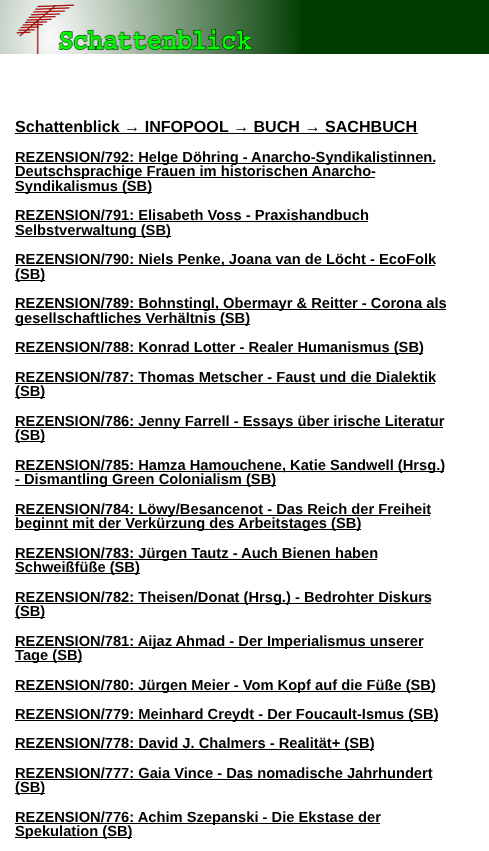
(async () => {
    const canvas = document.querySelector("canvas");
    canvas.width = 489;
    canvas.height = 851;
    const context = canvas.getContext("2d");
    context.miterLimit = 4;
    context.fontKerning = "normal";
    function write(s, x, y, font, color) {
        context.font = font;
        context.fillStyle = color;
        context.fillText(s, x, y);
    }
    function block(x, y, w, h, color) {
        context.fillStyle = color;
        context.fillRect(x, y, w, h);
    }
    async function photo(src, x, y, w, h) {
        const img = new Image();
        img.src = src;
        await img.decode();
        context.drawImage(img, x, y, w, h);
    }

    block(0, 0, 489, 851, "rgb(255, 255, 255)");
    block(301, 0, 188, 54, "rgb(0, 59, 0)");
    await photo("media/1.png", 0, 0, 301, 54);
    write("Schattenblick → INFOPOOL → BUCH → SACHBUCH", 15, 132, "bold 16.1px Liberation Sans", "rgb(0, 0, 0)");
    block(15, 133, 403, 1, "rgb(0, 0, 0)");
    block(15, 163, 420, 1, "rgb(0, 0, 0)");
    write("REZENSION/792: Helge Döhring - Anarcho-Syndikalistinnen.", 15, 162, "bold 14.7px Liberation Sans", "rgb(0, 0, 0)");
    block(15, 177, 360, 1, "rgb(0, 0, 0)");
    write("Deutschsprachige Frauen im historischen Anarcho-", 15, 176, "bold 14.7px Liberation Sans", "rgb(0, 0, 0)");
    block(15, 192, 137, 1, "rgb(0, 0, 0)");
    write("Syndikalismus (SB)", 15, 191, "bold 14.7px Liberation Sans", "rgb(0, 0, 0)");
    write("REZENSION/791: Elisabeth Voss - Praxishandbuch", 15, 220, "bold 14.7px Liberation Sans", "rgb(0, 0, 0)");
    block(15, 221, 353, 1, "rgb(0, 0, 0)");
    block(15, 236, 156, 1, "rgb(0, 0, 0)");
    write("Selbstverwaltung (SB)", 15, 235, "bold 14.7px Liberation Sans", "rgb(0, 0, 0)");
    block(15, 265, 420, 1, "rgb(0, 0, 0)");
    write("REZENSION/790: Niels Penke, Joana van de Löcht - EcoFolk", 15, 264, "bold 14.7px Liberation Sans", "rgb(0, 0, 0)");
    block(15, 280, 30, 1, "rgb(0, 0, 0)");
    write("(SB)", 15, 279, "bold 14.7px Liberation Sans", "rgb(0, 0, 0)");
    block(15, 309, 431, 1, "rgb(0, 0, 0)");
    write("REZENSION/789: Bohnstingl, Obermayr & Reitter - Corona als", 15, 308, "bold 14.7px Liberation Sans", "rgb(0, 0, 0)");
    block(15, 324, 235, 1, "rgb(0, 0, 0)");
    write("gesellschaftliches Verhältnis (SB)", 15, 323, "bold 14.7px Liberation Sans", "rgb(0, 0, 0)");
    block(15, 353, 408, 1, "rgb(0, 0, 0)");
    write("REZENSION/788: Konrad Lotter - Realer Humanismus (SB)", 15, 352, "bold 14.7px Liberation Sans", "rgb(0, 0, 0)");
    write("REZENSION/787: Thomas Metscher - Faust und die Dialektik", 15, 382, "bold 14.7px Liberation Sans", "rgb(0, 0, 0)");
    block(15, 383, 420, 1, "rgb(0, 0, 0)");
    block(15, 397, 30, 1, "rgb(0, 0, 0)");
    write("(SB)", 15, 396, "bold 14.7px Liberation Sans", "rgb(0, 0, 0)");
    block(15, 427, 428, 1, "rgb(0, 0, 0)");
    write("REZENSION/786: Jenny Farrell - Essays über irische Literatur", 15, 426, "bold 14.7px Liberation Sans", "rgb(0, 0, 0)");
    block(15, 441, 30, 1, "rgb(0, 0, 0)");
    write("(SB)", 15, 440, "bold 14.7px Liberation Sans", "rgb(0, 0, 0)");
    block(15, 471, 429, 1, "rgb(0, 0, 0)");
    write("REZENSION/785: Hamza Hamouchene, Katie Sandwell (Hrsg.)", 15, 470, "bold 14.7px Liberation Sans", "rgb(0, 0, 0)");
    block(15, 485, 261, 1, "rgb(0, 0, 0)");
    write("- Dismantling Green Colonialism (SB)", 15, 484, "bold 14.7px Liberation Sans", "rgb(0, 0, 0)");
    block(15, 515, 415, 1, "rgb(0, 0, 0)");
    write("REZENSION/784: Löwy/Besancenot - Das Reich der Freiheit", 15, 514, "bold 14.7px Liberation Sans", "rgb(0, 0, 0)");
    block(15, 529, 346, 1, "rgb(0, 0, 0)");
    write("beginnt mit der Verkürzung des Arbeitstages (SB)", 15, 528, "bold 14.7px Liberation Sans", "rgb(0, 0, 0)");
    block(15, 559, 362, 1, "rgb(0, 0, 0)");
    write("REZENSION/783: Jürgen Tautz - Auch Bienen haben", 15, 558, "bold 14.7px Liberation Sans", "rgb(0, 0, 0)");
    block(15, 573, 125, 1, "rgb(0, 0, 0)");
    write("Schweißfüße (SB)", 15, 572, "bold 14.7px Liberation Sans", "rgb(0, 0, 0)");
    block(15, 603, 416, 1, "rgb(0, 0, 0)");
    write("REZENSION/782: Theisen/Donat (Hrsg.) - Bedrohter Diskurs", 15, 602, "bold 14.7px Liberation Sans", "rgb(0, 0, 0)");
    block(15, 617, 30, 1, "rgb(0, 0, 0)");
    write("(SB)", 15, 616, "bold 14.7px Liberation Sans", "rgb(0, 0, 0)");
    block(15, 647, 408, 1, "rgb(0, 0, 0)");
    write("REZENSION/781: Aijaz Ahmad - Der Imperialismus unserer", 15, 646, "bold 14.7px Liberation Sans", "rgb(0, 0, 0)");
    block(15, 661, 67, 1, "rgb(0, 0, 0)");
    write("Tage (SB)", 15, 660, "bold 14.7px Liberation Sans", "rgb(0, 0, 0)");
    block(15, 691, 420, 1, "rgb(0, 0, 0)");
    write("REZENSION/780: Jürgen Meier - Vom Kopf auf die Füße (SB)", 15, 690, "bold 14.7px Liberation Sans", "rgb(0, 0, 0)");
    block(15, 720, 423, 1, "rgb(0, 0, 0)");
    write("REZENSION/779: Meinhard Creydt - Der Foucault-Ismus (SB)", 15, 719, "bold 14.7px Liberation Sans", "rgb(0, 0, 0)");
    block(15, 749, 359, 1, "rgb(0, 0, 0)");
    write("REZENSION/778: David J. Chalmers - Realität+ (SB)", 15, 748, "bold 14.7px Liberation Sans", "rgb(0, 0, 0)");
    write("REZENSION/777: Gaia Vince - Das nomadische Jahrhundert", 15, 778, "bold 14.7px Liberation Sans", "rgb(0, 0, 0)");
    block(15, 779, 417, 1, "rgb(0, 0, 0)");
    block(15, 793, 30, 1, "rgb(0, 0, 0)");
    write("(SB)", 15, 792, "bold 14.7px Liberation Sans", "rgb(0, 0, 0)");
    block(15, 823, 365, 1, "rgb(0, 0, 0)");
    write("REZENSION/776: Achim Szepanski - Die Ekstase der", 15, 822, "bold 14.7px Liberation Sans", "rgb(0, 0, 0)");
    block(15, 837, 117, 1, "rgb(0, 0, 0)");
    write("Spekulation (SB)", 15, 836, "bold 14.7px Liberation Sans", "rgb(0, 0, 0)");
})();
